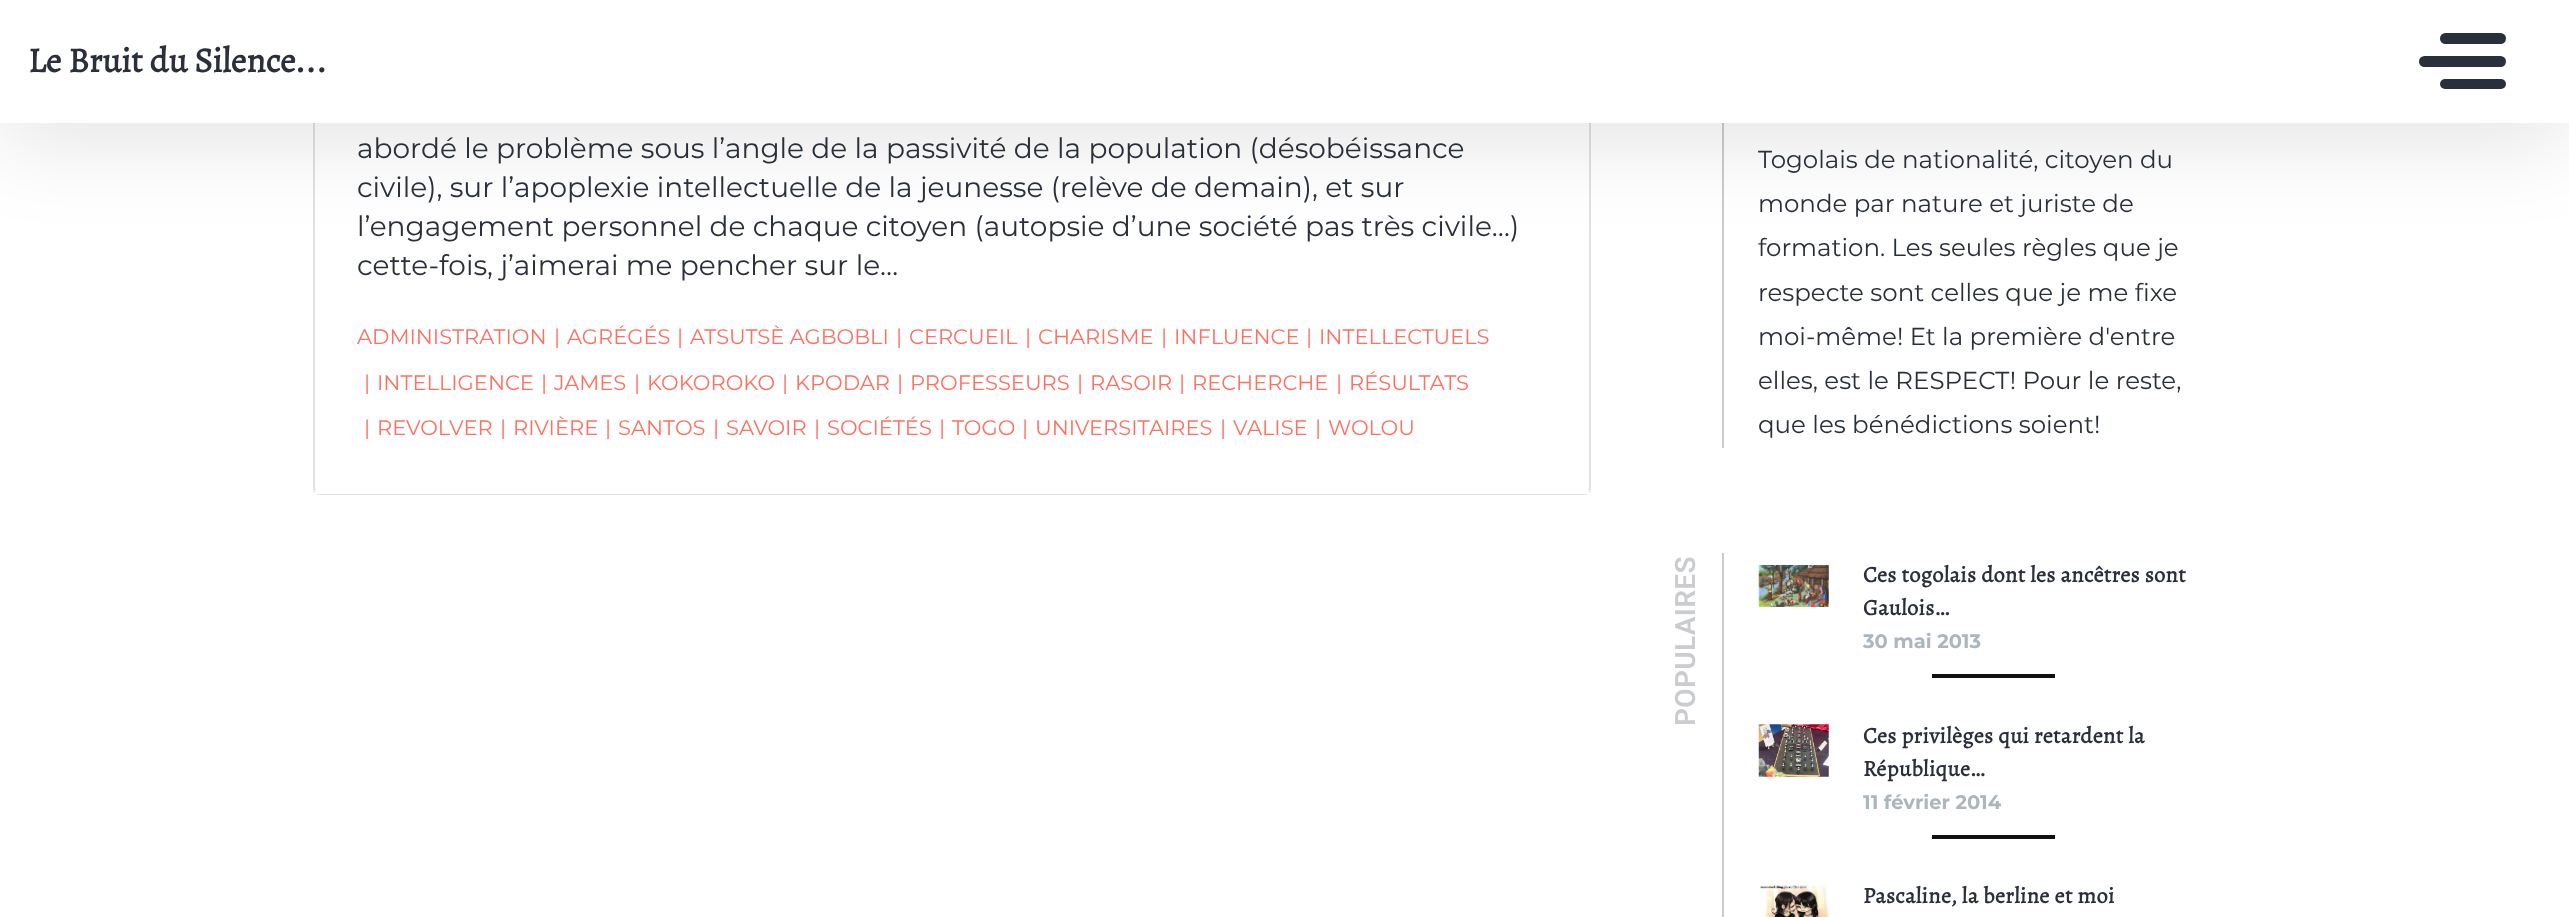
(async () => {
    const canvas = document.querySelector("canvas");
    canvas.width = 2569;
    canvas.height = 917;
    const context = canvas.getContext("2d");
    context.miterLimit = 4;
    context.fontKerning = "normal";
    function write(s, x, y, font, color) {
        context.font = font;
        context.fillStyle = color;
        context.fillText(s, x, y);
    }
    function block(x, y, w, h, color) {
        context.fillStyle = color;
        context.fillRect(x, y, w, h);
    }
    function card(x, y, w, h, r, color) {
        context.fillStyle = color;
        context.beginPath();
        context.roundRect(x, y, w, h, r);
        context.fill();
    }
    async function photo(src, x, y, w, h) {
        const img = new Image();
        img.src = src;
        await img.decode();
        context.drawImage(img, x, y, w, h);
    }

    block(0, 0, 2569, 917, "rgb(255, 255, 255)");
    context.beginPath();
    context.roundRect(314, -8, 1276, 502, 6);
    context.strokeStyle = "rgba(10, 10, 10, 0.12)";
    context.lineWidth = 2;
    context.stroke();
    block(1722, 123, 2, 325, "rgb(202, 204, 207)");
    context.fillStyle = "rgba(0, 0, 0, 0.11)";
    context.filter = "blur(44px)";
    context.beginPath();
    context.rect(0, 18, 2569, 122);
    context.fill();
    context.filter = "none";
    block(0, 0, 2569, 123, "rgb(255, 255, 255)");
    write("Le Bruit du Silence...", 28, 72, "bold 35px Alegreya", "rgb(42, 48, 59)");
    card(2419, 56, 87, 11, 5.5, "rgb(42, 48, 59)");
    card(2440, 33, 66, 11, 5.5, "rgb(42, 48, 59)");
    card(2440, 79, 66, 10, 5, "rgb(42, 48, 59)");
    block(315, 489, 1274, 5, "rgb(255, 255, 255)");
    write("abordé le problème sous l’angle de la passivité de la population (désobéissance", 357, 158, "100 28px Montserrat", "rgb(42, 48, 59)");
    write("civile), sur l’apoplexie intellectuelle de la jeunesse (relève de demain), et sur", 357, 197, "100 28px Montserrat", "rgb(42, 48, 59)");
    write("l’engagement personnel de chaque citoyen (autopsie d’une société pas très civile…)", 357, 236, "100 28px Montserrat", "rgb(42, 48, 59)");
    write("cette-fois, j’aimerai me pencher sur le…", 357, 275, "100 28px Montserrat", "rgb(42, 48, 59)");
    write("ADMINISTRATION", 357, 344, "100 21px Montserrat", "rgb(255, 112, 97)");
    write("|", 554, 344, "100 21px Montserrat", "rgb(255, 112, 97)");
    write("AGRÉGÉS", 567, 344, "100 21px Montserrat", "rgb(255, 112, 97)");
    write("|", 677, 344, "100 21px Montserrat", "rgb(255, 112, 97)");
    write("ATSUTSÈ AGBOBLI", 690, 344, "100 21px Montserrat", "rgb(255, 112, 97)");
    write("|", 896, 344, "100 21px Montserrat", "rgb(255, 112, 97)");
    write("CERCUEIL", 909, 344, "100 21px Montserrat", "rgb(255, 112, 97)");
    write("|", 1025, 344, "100 21px Montserrat", "rgb(255, 112, 97)");
    write("CHARISME", 1038, 344, "100 21px Montserrat", "rgb(255, 112, 97)");
    write("|", 1161, 344, "100 21px Montserrat", "rgb(255, 112, 97)");
    write("INFLUENCE", 1174, 344, "100 21px Montserrat", "rgb(255, 112, 97)");
    write("|", 1306, 344, "100 21px Montserrat", "rgb(255, 112, 97)");
    write("INTELLECTUELS", 1319, 344, "100 21px Montserrat", "rgb(255, 112, 97)");
    write("|", 364, 390, "100 21px Montserrat", "rgb(255, 112, 97)");
    write("INTELLIGENCE", 377, 390, "100 21px Montserrat", "rgb(255, 112, 97)");
    write("|", 541, 390, "100 21px Montserrat", "rgb(255, 112, 97)");
    write("JAMES", 554, 390, "100 21px Montserrat", "rgb(255, 112, 97)");
    write("|", 634, 390, "100 21px Montserrat", "rgb(255, 112, 97)");
    write("KOKOROKO", 647, 390, "100 21px Montserrat", "rgb(255, 112, 97)");
    write("|", 782, 390, "100 21px Montserrat", "rgb(255, 112, 97)");
    write("KPODAR", 795, 390, "100 21px Montserrat", "rgb(255, 112, 97)");
    write("|", 897, 390, "100 21px Montserrat", "rgb(255, 112, 97)");
    write("PROFESSEURS", 910, 390, "100 21px Montserrat", "rgb(255, 112, 97)");
    write("|", 1077, 390, "100 21px Montserrat", "rgb(255, 112, 97)");
    write("RASOIR", 1090, 390, "100 21px Montserrat", "rgb(255, 112, 97)");
    write("|", 1179, 390, "100 21px Montserrat", "rgb(255, 112, 97)");
    write("RECHERCHE", 1192, 390, "100 21px Montserrat", "rgb(255, 112, 97)");
    write("|", 1336, 390, "100 21px Montserrat", "rgb(255, 112, 97)");
    write("RÉSULTATS", 1349, 390, "100 21px Montserrat", "rgb(255, 112, 97)");
    write("|", 364, 435, "100 21px Montserrat", "rgb(255, 112, 97)");
    write("REVOLVER", 377, 435, "100 21px Montserrat", "rgb(255, 112, 97)");
    write("|", 500, 435, "100 21px Montserrat", "rgb(255, 112, 97)");
    write("RIVIÈRE", 513, 435, "100 21px Montserrat", "rgb(255, 112, 97)");
    write("|", 605, 435, "100 21px Montserrat", "rgb(255, 112, 97)");
    write("SANTOS", 618, 435, "100 21px Montserrat", "rgb(255, 112, 97)");
    write("|", 713, 435, "100 21px Montserrat", "rgb(255, 112, 97)");
    write("SAVOIR", 726, 435, "100 21px Montserrat", "rgb(255, 112, 97)");
    write("|", 814, 435, "100 21px Montserrat", "rgb(255, 112, 97)");
    write("SOCIÉTÉS", 827, 435, "100 21px Montserrat", "rgb(255, 112, 97)");
    write("|", 939, 435, "100 21px Montserrat", "rgb(255, 112, 97)");
    write("TOGO", 952, 435, "100 21px Montserrat", "rgb(255, 112, 97)");
    write("|", 1022, 435, "100 21px Montserrat", "rgb(255, 112, 97)");
    write("UNIVERSITAIRES", 1035, 435, "100 21px Montserrat", "rgb(255, 112, 97)");
    write("|", 1220, 435, "100 21px Montserrat", "rgb(255, 112, 97)");
    write("VALISE", 1233, 435, "100 21px Montserrat", "rgb(255, 112, 97)");
    write("|", 1315, 435, "100 21px Montserrat", "rgb(255, 112, 97)");
    write("WOLOU", 1328, 435, "100 21px Montserrat", "rgb(255, 112, 97)");
    write("Togolais de nationalité, citoyen du", 1758, 168, "100 24.5px Montserrat", "rgb(42, 48, 59)");
    write("monde par nature et juriste de", 1758, 212, "100 24.5px Montserrat", "rgb(42, 48, 59)");
    write("formation. Les seules règles que je", 1758, 256, "100 24.5px Montserrat", "rgb(42, 48, 59)");
    write("respecte sont celles que je me fixe", 1758, 301, "100 24.5px Montserrat", "rgb(42, 48, 59)");
    write("moi-même! Et la première d'entre", 1758, 345, "100 24.5px Montserrat", "rgb(42, 48, 59)");
    write("elles, est le RESPECT! Pour le reste,", 1758, 389, "100 24.5px Montserrat", "rgb(42, 48, 59)");
    write("que les bénédictions soient!", 1758, 433, "100 24.5px Montserrat", "rgb(42, 48, 59)");
    context.letterSpacing = "0.35px";
    context.font = "600 28px Roboto";
    context.fillStyle = "rgb(202, 204, 207)";
    context.save();
    context.translate(1695, 726);
    context.rotate(-90 * Math.PI / 180);
    context.fillText("POPULAIRES", 0, 0);
    context.restore();
    block(1722, 553, 2, 364, "rgb(202, 204, 207)");
    await photo("media/1.png", 1758, 565, 71, 42);
    write("Ces togolais dont les ancêtres sont", 1863, 582, "bold 22.4px Alegreya", "rgb(42, 48, 59)");
    write("Gaulois…", 1863, 615, "bold 22.4px Alegreya", "rgb(42, 48, 59)");
    context.letterSpacing = "0px";
    write("30 mai 2013", 1863, 648, "bold 19.5px Montserrat", "rgb(173, 181, 189)");
    block(1932, 674, 123, 4, "rgb(17, 17, 17)");
    await photo("media/2.png", 1758, 724, 71, 53);
    context.letterSpacing = "0.35px";
    write("Ces privilèges qui retardent la", 1863, 743, "bold 22.4px Alegreya", "rgb(42, 48, 59)");
    write("République…", 1863, 776, "bold 22.4px Alegreya", "rgb(42, 48, 59)");
    context.letterSpacing = "0px";
    write("11 février 2014", 1863, 809, "bold 19.5px Montserrat", "rgb(173, 181, 189)");
    block(1932, 835, 123, 4, "rgb(17, 17, 17)");
    await photo("media/3.png", 1759, 885, 70, 32);
    context.letterSpacing = "0.35px";
    write("Pascaline, la berline et moi", 1863, 903, "bold 22.4px Alegreya", "rgb(42, 48, 59)");
})();
